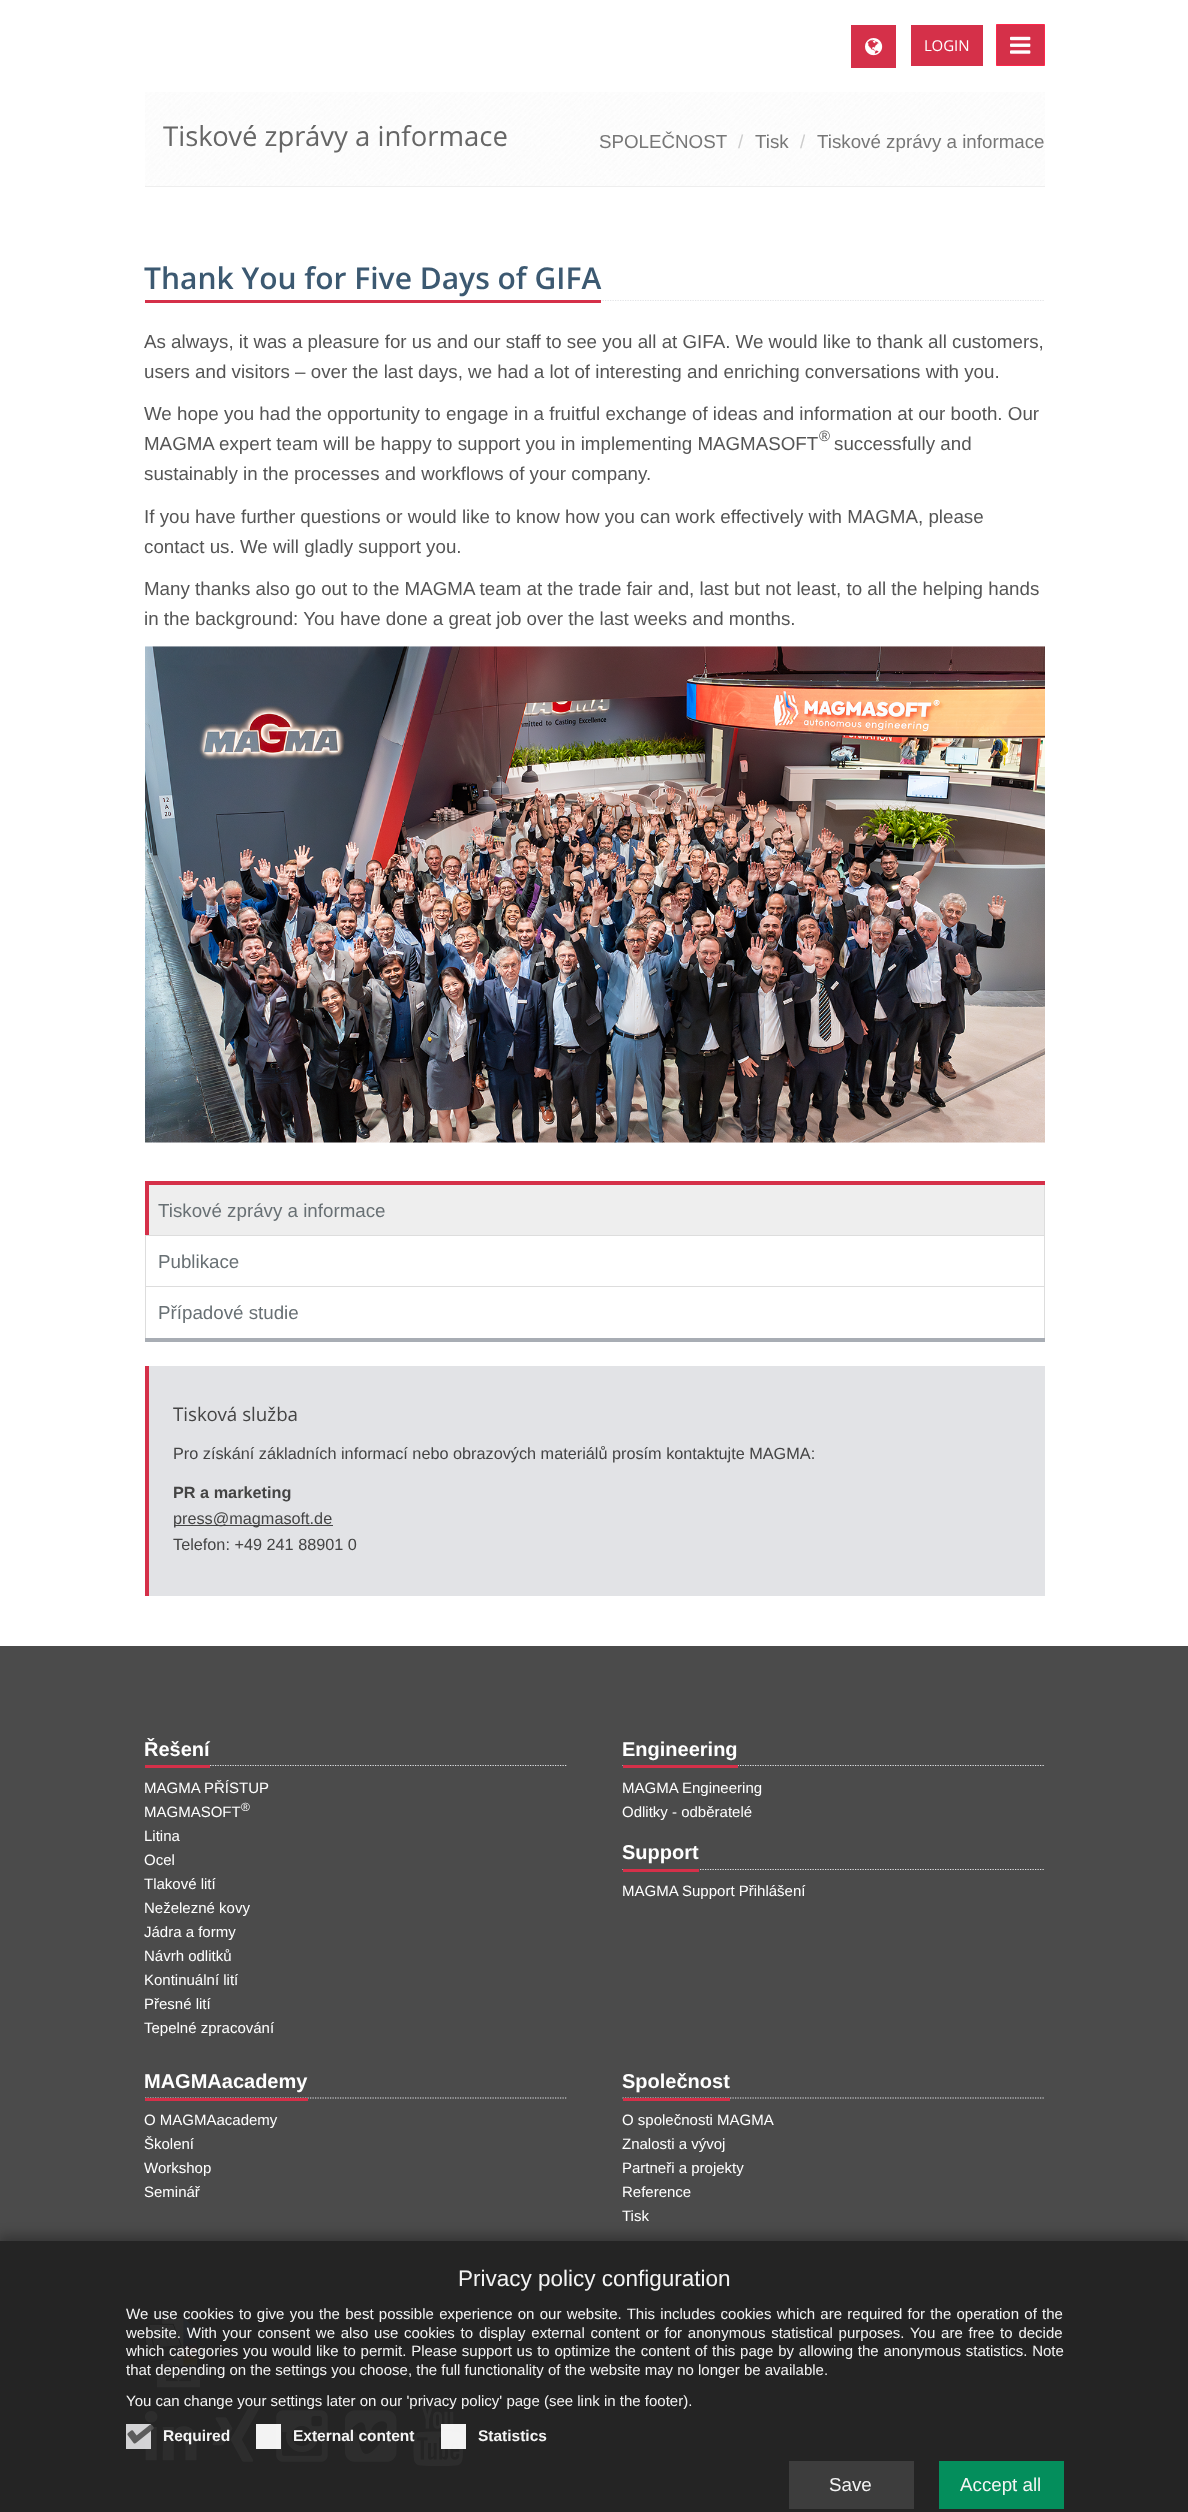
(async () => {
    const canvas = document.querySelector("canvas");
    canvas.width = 1188;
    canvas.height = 2512;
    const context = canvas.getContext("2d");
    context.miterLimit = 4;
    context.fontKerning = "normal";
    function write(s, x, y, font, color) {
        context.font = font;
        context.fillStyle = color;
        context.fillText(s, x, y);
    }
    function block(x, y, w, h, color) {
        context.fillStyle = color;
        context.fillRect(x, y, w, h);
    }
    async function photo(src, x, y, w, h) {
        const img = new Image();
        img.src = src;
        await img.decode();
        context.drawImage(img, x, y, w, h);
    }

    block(0, 0, 1188, 2512, "rgb(255, 255, 255)");
    block(851, 25, 45, 43, "rgb(213, 48, 73)");
    await photo("media/1.png", 865, 38, 18, 18);
    block(911, 25, 72, 41, "rgb(213, 48, 73)");
    write("LOGIN", 924, 51, "15px Open Sans", "rgb(255, 255, 255)");
    context.fillStyle = "rgb(213, 48, 73)";
    context.beginPath();
    context.rect(996.5, 24.5, 48, 41);
    context.fill();
    context.strokeStyle = "rgb(255, 38, 74)";
    context.stroke();
    await photo("media/2.png", 1010, 36, 21, 18);
    await photo("media/3.png", 145, 92, 900, 94);
    block(145, 186, 900, 1, "rgb(238, 238, 238)");
    write("Tiskové zprávy a informace", 163, 146, "27.5px Open Sans", "rgb(102, 102, 102)");
    write("SPOLEČNOST", 599, 148, "18.75px Liberation Sans", "rgb(119, 119, 119)");
    write("/", 738, 148, "18.75px Liberation Sans", "rgb(204, 204, 204)");
    write("Tisk", 755, 148, "18.75px Liberation Sans", "rgb(119, 119, 119)");
    write("/", 800, 148, "18.75px Liberation Sans", "rgb(204, 204, 204)");
    write("Tiskové zprávy a informace", 817, 148, "18.75px Liberation Sans", "rgb(119, 119, 119)");
    context.beginPath();
    context.moveTo(145, 300.5);
    context.lineTo(1045, 300.5);
    context.strokeStyle = "rgb(226, 227, 230)";
    context.lineWidth = 1.2;
    context.setLineDash([1.25, 1.25]);
    context.stroke();
    block(145, 300, 456, 3, "rgb(213, 48, 73)");
    write("Thank You for Five Days of GIFA", 144, 289, "600 30px Open Sans", "rgb(60, 89, 113)");
    write("As always, it was a pleasure for us and our staff to see you all at GIFA. We would like to thank all customers,", 144, 348, "18.75px Liberation Sans", "rgb(85, 85, 85)");
    write("users and visitors – over the last days, we had a lot of interesting and enriching conversations with you.", 144, 378, "18.75px Liberation Sans", "rgb(85, 85, 85)");
    write("We hope you had the opportunity to engage in a fruitful exchange of ideas and information at our booth. Our", 144, 420, "18.75px Liberation Sans", "rgb(85, 85, 85)");
    write("MAGMA expert team will be happy to support you in implementing MAGMASOFT", 144, 450, "18.75px Liberation Sans", "rgb(85, 85, 85)");
    write("®", 819, 441, "15px Liberation Sans", "rgb(85, 85, 85)");
    write("successfully and", 834, 450, "18.75px Liberation Sans", "rgb(85, 85, 85)");
    write("sustainably in the processes and workflows of your company.", 144, 480, "18.75px Liberation Sans", "rgb(85, 85, 85)");
    write("If you have further questions or would like to know how you can work effectively with MAGMA, please", 144, 523, "18.75px Liberation Sans", "rgb(85, 85, 85)");
    write("contact us. We will gladly support you.", 144, 553, "18.75px Liberation Sans", "rgb(85, 85, 85)");
    write("Many thanks also go out to the MAGMA team at the trade fair and, last but not least, to all the helping hands", 144, 595, "18.75px Liberation Sans", "rgb(85, 85, 85)");
    write("in the background: You have done a great job over the last weeks and months.", 144, 625, "18.75px Liberation Sans", "rgb(85, 85, 85)");
    await photo("media/4.png", 145, 646, 900, 497);
    block(145, 1181, 900, 4, "rgb(213, 48, 73)");
    block(1044, 1185, 1, 51, "rgb(221, 221, 221)");
    context.fillStyle = "rgb(213, 48, 73)";
    context.beginPath();
    context.moveTo(145, 1236);
    context.lineTo(145, 1185);
    context.lineTo(149, 1185);
    context.lineTo(149, 1235);
    context.closePath();
    context.fill();
    block(149, 1185, 895, 50, "rgb(238, 238, 238)");
    write("Tiskové zprávy a informace", 158, 1217, "18.75px Liberation Sans", "rgb(104, 112, 116)");
    context.strokeStyle = "rgb(221, 221, 221)";
    context.lineWidth = 1;
    context.setLineDash([]);
    context.strokeRect(145.5, 1235.5, 899, 52);
    write("Publikace", 158, 1268, "18.75px Liberation Sans", "rgb(104, 112, 116)");
    block(146, 1287, 898, 1, "rgb(255, 255, 255)");
    block(145, 1286, 900, 1, "rgb(221, 221, 221)");
    block(1044, 1286, 1, 52, "rgb(221, 221, 221)");
    block(145, 1286, 1, 52, "rgb(221, 221, 221)");
    write("Případové studie", 158, 1319, "18.75px Liberation Sans", "rgb(104, 112, 116)");
    block(145, 1338, 900, 4, "rgb(168, 173, 180)");
    block(149, 1366, 896, 230, "rgb(226, 227, 230)");
    block(145, 1366, 4, 230, "rgb(213, 48, 73)");
    write("Tisková služba", 173, 1421, "18.75px Open Sans", "rgb(68, 68, 68)");
    write("Pro získání základních informací nebo obrazových materiálů prosím kontaktujte MAGMA:", 173, 1459, "16.25px Liberation Sans", "rgb(68, 68, 68)");
    write("PR a marketing", 173, 1498, "bold 16.25px Liberation Sans", "rgb(68, 68, 68)");
    block(174, 1525, 159, 1, "rgb(68, 68, 68)");
    write("press@magmasoft.de", 173, 1524, "16.25px Liberation Sans", "rgb(68, 68, 68)");
    write("Telefon: +49 241 88901 0", 173, 1550, "16.25px Liberation Sans", "rgb(68, 68, 68)");
    block(0, 1646, 1188, 866, "rgb(75, 75, 75)");
    context.beginPath();
    context.moveTo(145, 1765.5);
    context.lineTo(567.5, 1765.5);
    context.strokeStyle = "rgb(226, 227, 230)";
    context.lineWidth = 1.2;
    context.setLineDash([1.25, 1.25]);
    context.stroke();
    block(145, 1765, 65, 3, "rgb(213, 48, 73)");
    write("Řešení", 144, 1756, "bold 20px Liberation Sans", "rgb(255, 255, 255)");
    write("MAGMA PŘÍSTUP", 144, 1793, "15px Liberation Sans", "rgb(255, 255, 255)");
    write("MAGMASOFT", 144, 1817, "15px Liberation Sans", "rgb(255, 255, 255)");
    write("®", 241, 1811, "12px Liberation Sans", "rgb(255, 255, 255)");
    write("Litina", 144, 1841, "15px Liberation Sans", "rgb(255, 255, 255)");
    write("Ocel", 144, 1865, "15px Liberation Sans", "rgb(255, 255, 255)");
    write("Tlakové lití", 144, 1889, "15px Liberation Sans", "rgb(255, 255, 255)");
    write("Neželezné kovy", 144, 1913, "15px Liberation Sans", "rgb(255, 255, 255)");
    write("Jádra a formy", 144, 1937, "15px Liberation Sans", "rgb(255, 255, 255)");
    write("Návrh odlitků", 144, 1961, "15px Liberation Sans", "rgb(255, 255, 255)");
    write("Kontinuální lití", 144, 1985, "15px Liberation Sans", "rgb(255, 255, 255)");
    write("Přesné lití", 144, 2009, "15px Liberation Sans", "rgb(255, 255, 255)");
    write("Tepelné zpracování", 144, 2033, "15px Liberation Sans", "rgb(255, 255, 255)");
    context.beginPath();
    context.moveTo(622.5, 1765.5);
    context.lineTo(1045, 1765.5);
    context.stroke();
    block(623, 1765, 115, 3, "rgb(213, 48, 73)");
    write("Engineering", 622, 1756, "bold 20px Liberation Sans", "rgb(255, 255, 255)");
    write("MAGMA Engineering", 622, 1793, "15px Liberation Sans", "rgb(255, 255, 255)");
    write("Odlitky - odběratelé", 622, 1817, "15px Liberation Sans", "rgb(255, 255, 255)");
    context.beginPath();
    context.moveTo(622.5, 1869.5);
    context.lineTo(1045, 1869.5);
    context.stroke();
    block(623, 1869, 76, 3, "rgb(213, 48, 73)");
    write("Support", 622, 1859, "bold 20px Liberation Sans", "rgb(255, 255, 255)");
    write("MAGMA Support Přihlášení", 622, 1896, "15px Liberation Sans", "rgb(255, 255, 255)");
    context.beginPath();
    context.moveTo(145, 2098);
    context.lineTo(567.5, 2098);
    context.stroke();
    block(145, 2098, 163, 3, "rgb(213, 48, 73)");
    write("MAGMAacademy", 144, 2088, "bold 20px Liberation Sans", "rgb(255, 255, 255)");
    write("O MAGMAacademy", 144, 2125, "15px Liberation Sans", "rgb(255, 255, 255)");
    write("Školení", 144, 2149, "15px Liberation Sans", "rgb(255, 255, 255)");
    write("Workshop", 144, 2173, "15px Liberation Sans", "rgb(255, 255, 255)");
    write("Seminář", 144, 2197, "15px Liberation Sans", "rgb(255, 255, 255)");
    context.beginPath();
    context.moveTo(622.5, 2098);
    context.lineTo(1045, 2098);
    context.stroke();
    block(623, 2098, 107, 3, "rgb(213, 48, 73)");
    write("Společnost", 622, 2088, "bold 20px Liberation Sans", "rgb(255, 255, 255)");
    write("O společnosti MAGMA", 622, 2125, "15px Liberation Sans", "rgb(255, 255, 255)");
    write("Znalosti a vývoj", 622, 2149, "15px Liberation Sans", "rgb(255, 255, 255)");
    write("Partneři a projekty", 622, 2173, "15px Liberation Sans", "rgb(255, 255, 255)");
    write("Reference", 622, 2197, "15px Liberation Sans", "rgb(255, 255, 255)");
    write("Tisk", 622, 2221, "15px Liberation Sans", "rgb(255, 255, 255)");
    await photo("media/5.png", 145, 2314, 56, 74);
    await photo("media/6.png", 145, 2411, 52, 50);
    await photo("media/7.png", 212, 2406, 48, 56);
    await photo("media/8.png", 276, 2410, 52, 52);
    await photo("media/9.png", 345, 2410, 52, 52);
    await photo("media/10.png", 413, 2406, 50, 61);
    context.save();
    context.beginPath();
    context.moveTo(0, 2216);
    context.lineTo(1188, 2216);
    context.lineTo(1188, 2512);
    context.lineTo(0, 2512);
    context.closePath();
    context.moveTo(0, 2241);
    context.lineTo(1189, 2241);
    context.lineTo(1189, 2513);
    context.lineTo(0, 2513);
    context.closePath();
    context.clip("evenodd");
    context.fillStyle = "rgba(0, 0, 0, 0.28)";
    context.filter = "blur(6px)";
    context.beginPath();
    context.rect(-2, 2235, 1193, 276);
    context.fill();
    context.filter = "none";
    context.restore();
    block(0, 2241, 1188, 271, "rgba(34, 34, 34, 0.95)");
    write("Privacy policy configuration", 458, 2286, "22.5px Liberation Sans", "rgb(244, 244, 244)");
    context.wordSpacing = "1.1px";
    write("We use cookies to give you the best possible experience on our website. This includes cookies which are required for the operation of the", 126, 2319, "15px Liberation Sans", "rgb(244, 244, 244)");
    context.wordSpacing = "1.6px";
    write("website. With your consent we also use cookies to display external content or for anonymous statistical purposes. You are free to decide", 126, 2338, "15px Liberation Sans", "rgb(244, 244, 244)");
    context.wordSpacing = "0.6px";
    write("which categories you would like to permit. Please support us to optimize the content of this page by allowing the anonymous statistics. Note", 126, 2356, "15px Liberation Sans", "rgb(244, 244, 244)");
    context.wordSpacing = "0px";
    write("that depending on the settings you choose, the full functionality of the website may no longer be available.", 126, 2375, "15px Liberation Sans", "rgb(244, 244, 244)");
    write("You can change your settings later on our 'privacy policy' page (see link in the footer).", 126, 2406, "15px Liberation Sans", "rgb(244, 244, 244)");
    block(126, 2424, 25, 25, "rgba(221, 221, 223, 0.95)");
    await photo("media/11.png", 127, 2424, 27, 20);
    write("Required", 163, 2441, "bold 15.5px Liberation Sans", "rgb(244, 244, 244)");
    block(256, 2424, 25, 25, "rgba(255, 255, 255, 0.95)");
    write("External content", 293, 2441, "bold 15.5px Liberation Sans", "rgb(244, 244, 244)");
    block(441, 2424, 25, 25, "rgba(255, 255, 255, 0.95)");
    write("Statistics", 478, 2441, "bold 15.5px Liberation Sans", "rgb(244, 244, 244)");
    block(789, 2461, 125, 48, "rgb(61, 61, 61)");
    write("Save", 829, 2491, "18.75px Liberation Sans", "rgb(244, 244, 244)");
    block(939, 2461, 125, 48, "rgb(4, 142, 92)");
    write("Accept all", 960, 2491, "18.75px Liberation Sans", "rgb(244, 244, 244)");
})();
